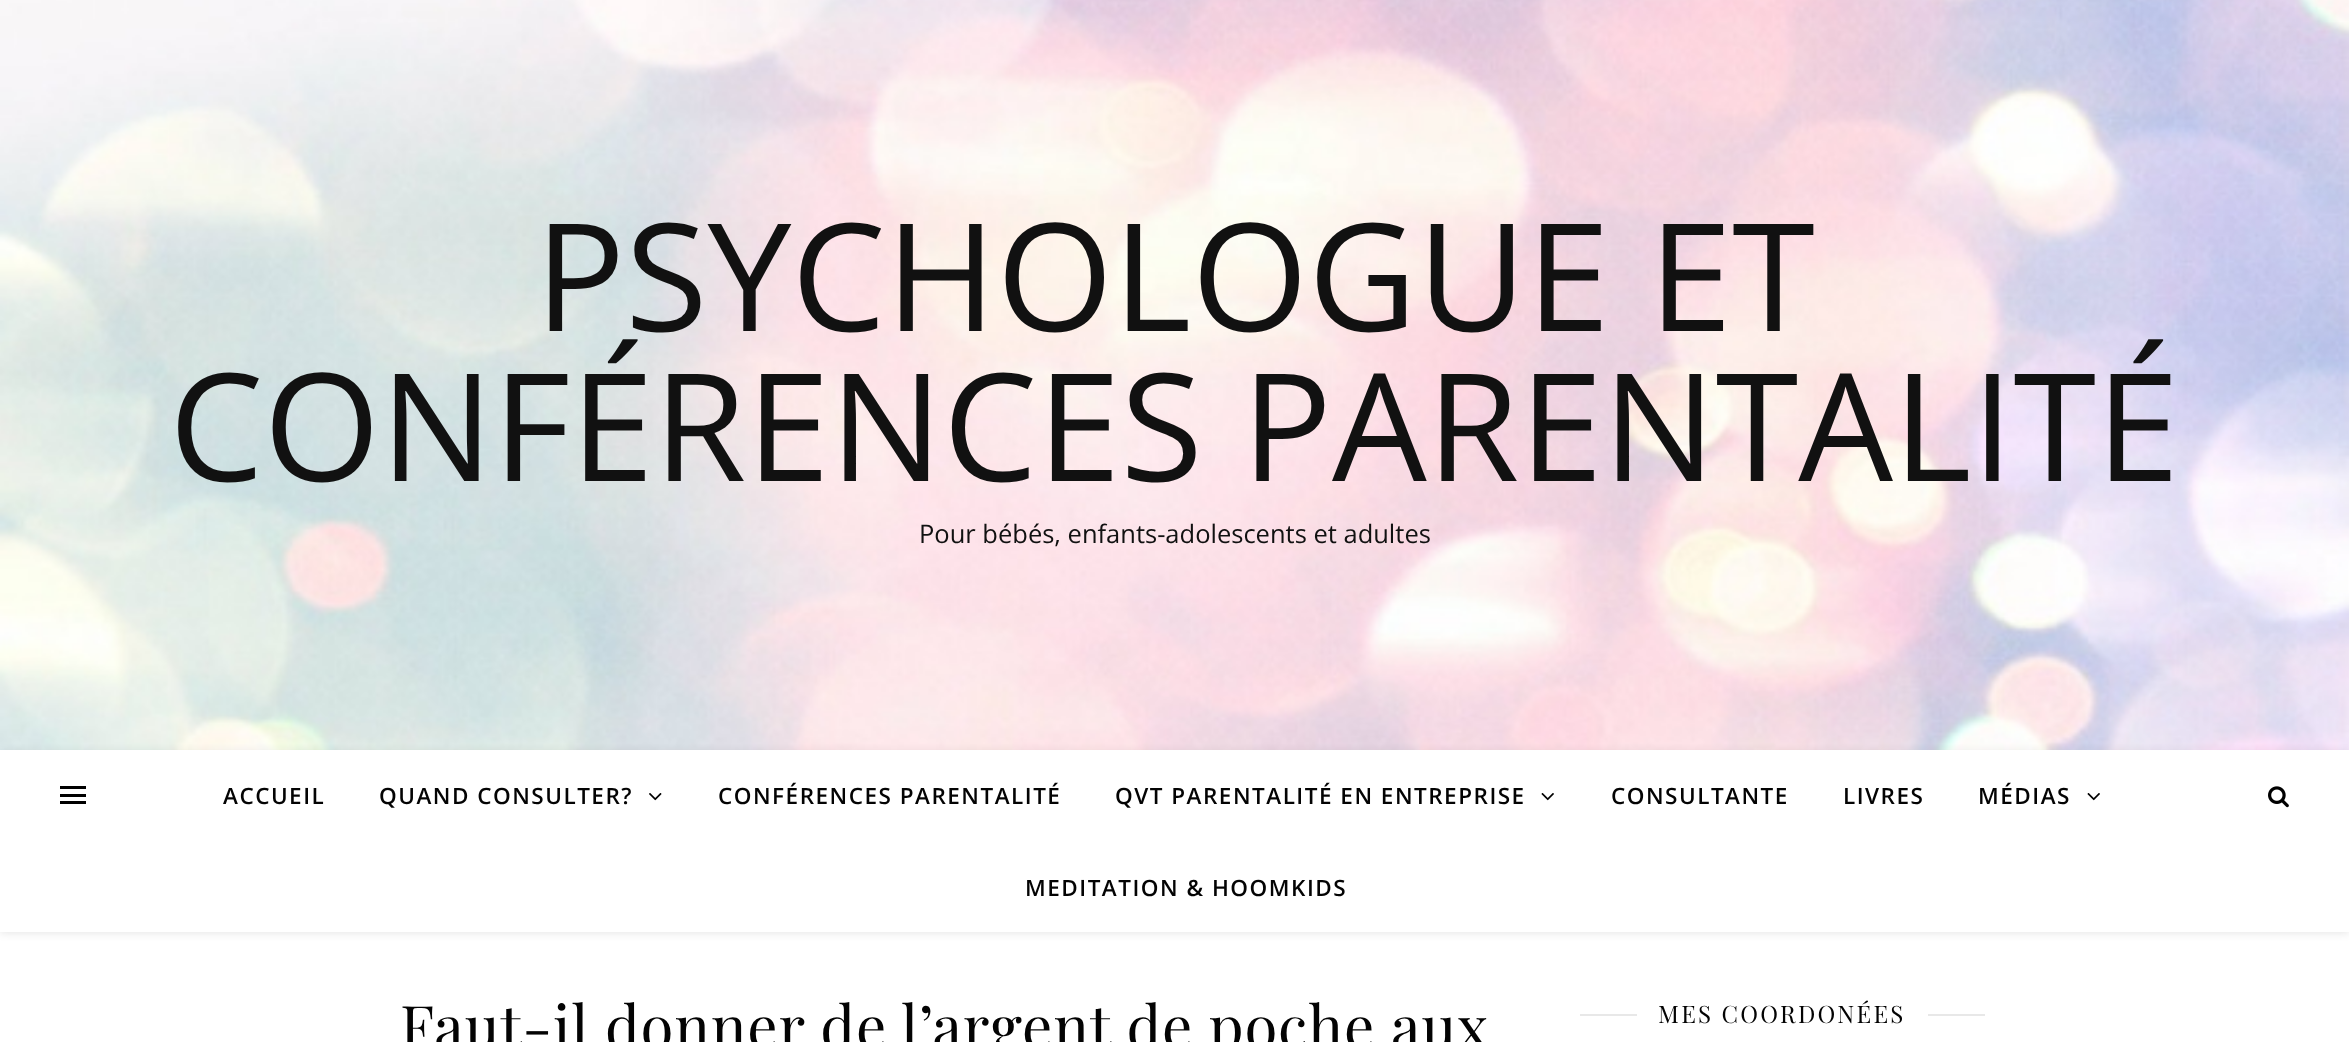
(async () => {
    const canvas = document.querySelector("canvas");
    canvas.width = 2349;
    canvas.height = 1042;
    const context = canvas.getContext("2d");
    context.miterLimit = 4;
    context.fontKerning = "normal";
    function write(s, x, y, font, color) {
        context.font = font;
        context.fillStyle = color;
        context.fillText(s, x, y);
    }
    function block(x, y, w, h, color) {
        context.fillStyle = color;
        context.fillRect(x, y, w, h);
    }
    async function photo(src, x, y, w, h) {
        const img = new Image();
        img.src = src;
        await img.decode();
        context.drawImage(img, x, y, w, h);
    }

    block(0, 0, 2349, 1042, "rgb(255, 255, 255)");
    await photo("media/1.png", 0, 0, 2349, 750);
    write("PSYCHOLOGUE ET", 535, 331, "150px Open Sans", "rgb(17, 17, 17)");
    write("CONFÉRENCES PARENTALITÉ", 169, 481, "150px Open Sans", "rgb(17, 17, 17)");
    write("Pour bébés, enfants-adolescents et adultes", 919, 543, "25.5px Open Sans", "rgb(17, 17, 17)");
    context.fillStyle = "rgba(0, 0, 0, 0.1)";
    context.filter = "blur(4px)";
    context.beginPath();
    context.rect(0, 752, 2349, 181);
    context.fill();
    context.filter = "none";
    block(0, 750, 2349, 182, "rgb(255, 255, 255)");
    block(60, 786, 26, 3, "rgb(0, 0, 0)");
    block(60, 794, 26, 3, "rgb(0, 0, 0)");
    block(60, 801, 26, 3, "rgb(0, 0, 0)");
    context.letterSpacing = "1.5px";
    write("ACCUEIL", 223, 804, "600 22.5px Open Sans", "rgb(3, 3, 3)");
    write("QUAND CONSULTER?", 379, 804, "600 22.5px Open Sans", "rgb(3, 3, 3)");
    await photo("media/2.png", 649, 793, 13, 8);
    write("CONFÉRENCES PARENTALITÉ", 718, 804, "600 22.5px Open Sans", "rgb(3, 3, 3)");
    write("QVT PARENTALITÉ EN ENTREPRISE", 1115, 804, "600 22.5px Open Sans", "rgb(3, 3, 3)");
    await photo("media/3.png", 1541, 793, 13, 8);
    write("CONSULTANTE", 1611, 804, "600 22.5px Open Sans", "rgb(3, 3, 3)");
    write("LIVRES", 1843, 804, "600 22.5px Open Sans", "rgb(3, 3, 3)");
    write("MÉDIAS", 1978, 804, "600 22.5px Open Sans", "rgb(3, 3, 3)");
    await photo("media/3.png", 2087, 793, 13, 8);
    write("MEDITATION & HOOMKIDS", 1025, 896, "600 22.5px Open Sans", "rgb(3, 3, 3)");
    await photo("media/4.png", 2268, 786, 21, 22);
    context.letterSpacing = "0.75px";
    write("Faut-il donner de l’argent de poche aux", 400, 1049, "60px Playfair Display", "rgb(3, 3, 3)");
    block(1580, 1014, 57, 2, "rgb(232, 232, 232)");
    context.letterSpacing = "2.25px";
    write("MES COORDONÉES", 1658, 1023, "24px Playfair Display", "rgb(3, 3, 3)");
    block(1928, 1014, 57, 2, "rgb(232, 232, 232)");
})();
